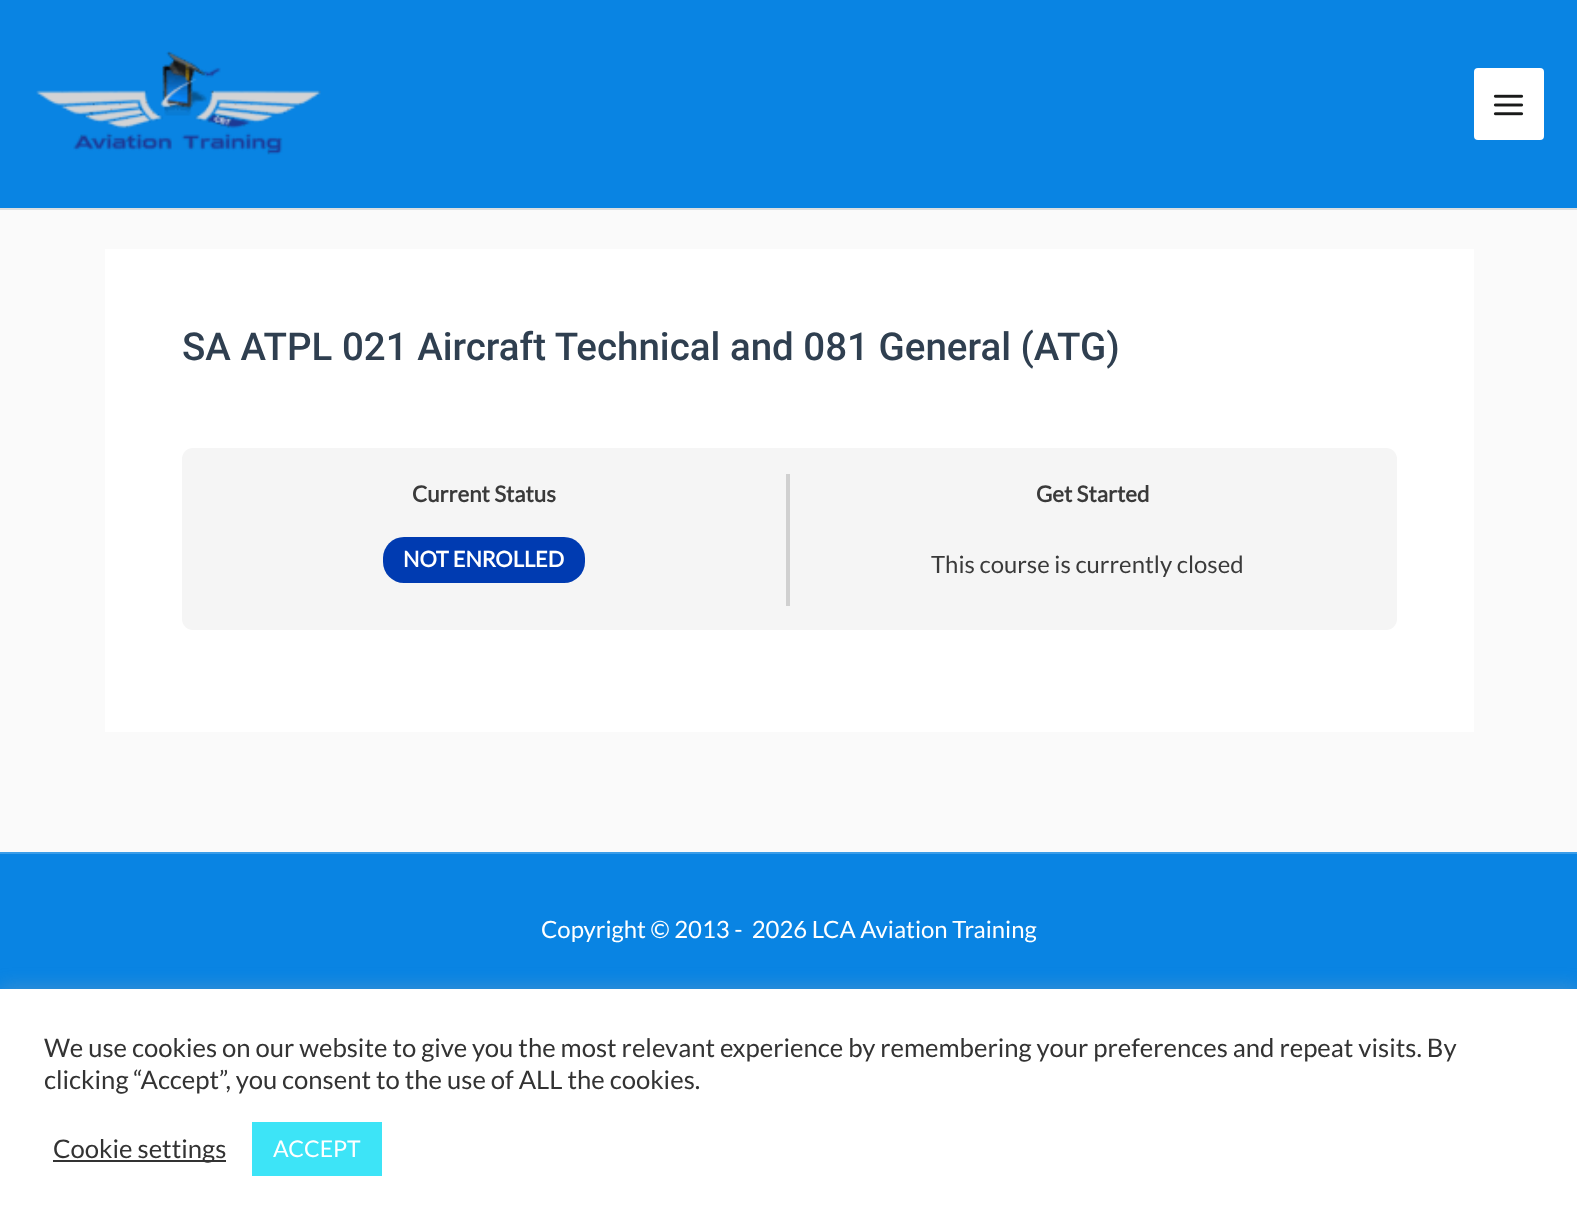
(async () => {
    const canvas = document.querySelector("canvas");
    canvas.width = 1577;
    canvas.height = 1228;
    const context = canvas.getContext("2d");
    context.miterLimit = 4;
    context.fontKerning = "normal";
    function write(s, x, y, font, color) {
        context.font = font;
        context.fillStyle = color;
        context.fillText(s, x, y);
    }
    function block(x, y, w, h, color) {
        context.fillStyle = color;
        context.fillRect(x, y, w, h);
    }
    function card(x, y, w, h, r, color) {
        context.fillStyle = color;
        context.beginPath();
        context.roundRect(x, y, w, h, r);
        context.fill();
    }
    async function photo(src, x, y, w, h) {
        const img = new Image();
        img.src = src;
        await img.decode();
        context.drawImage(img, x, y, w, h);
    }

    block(0, 0, 1577, 1228, "rgb(250, 250, 250)");
    block(0, 0, 1577, 208, "rgb(9, 132, 227)");
    block(0, 208, 1577, 2, "rgb(219, 222, 224)");
    await photo("media/1.png", 36, 51, 285, 104);
    card(1474, 68, 70, 72, 4, "rgb(255, 255, 255)");
    await photo("media/2.png", 1493, 94, 31, 22);
    block(105, 249, 1369, 483, "rgb(255, 255, 255)");
    write("SA ATPL 021 Aircraft Technical and 081 General (ATG)", 182, 360, "500 38.5px Roboto", "rgb(47, 63, 80)");
    card(182, 448, 1215, 182, 11, "rgb(245, 245, 245)");
    block(786, 474, 4, 132, "rgb(208, 208, 208)");
    write("Current Status", 412, 502, "bold 22.25px Lato", "rgb(58, 58, 58)");
    card(383, 537, 202, 46, 21, "rgb(0, 59, 177)");
    write("NOT ENROLLED", 403, 567, "bold 21.75px Lato", "rgb(255, 255, 255)");
    write("Get Started", 1036, 502, "bold 22.25px Lato", "rgb(58, 58, 58)");
    write("This course is currently closed", 931, 573, "23.9px Lato", "rgb(58, 58, 58)");
    block(0, 854, 1577, 135, "rgb(9, 132, 227)");
    block(0, 852, 1577, 2, "rgb(58, 157, 233)");
    write("Copyright © 2013 -  2026 LCA Aviation Training", 541, 938, "23.9px Lato", "rgb(255, 255, 255)");
    context.fillStyle = "rgba(172, 171, 171, 0.3)";
    context.filter = "blur(9px)";
    context.beginPath();
    context.rect(0, 987, 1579, 240);
    context.fill();
    context.filter = "none";
    block(0, 989, 1577, 239, "rgb(255, 255, 255)");
    write("We use cookies on our website to give you the most relevant experience by remembering your preferences and repeat visits. By", 44, 1057, "25.67px Lato", "rgb(51, 51, 51)");
    write("clicking “Accept”, you consent to the use of ALL the cookies.", 44, 1089, "25.67px Lato", "rgb(51, 51, 51)");
    block(53, 1160, 173, 2, "rgb(51, 51, 51)");
    write("Cookie settings", 53, 1158, "25.67px Lato", "rgb(51, 51, 51)");
    block(252, 1122, 130, 54, "rgb(61, 228, 247)");
    write("ACCEPT", 273, 1157, "23px Lato", "rgb(255, 255, 255)");
})();
